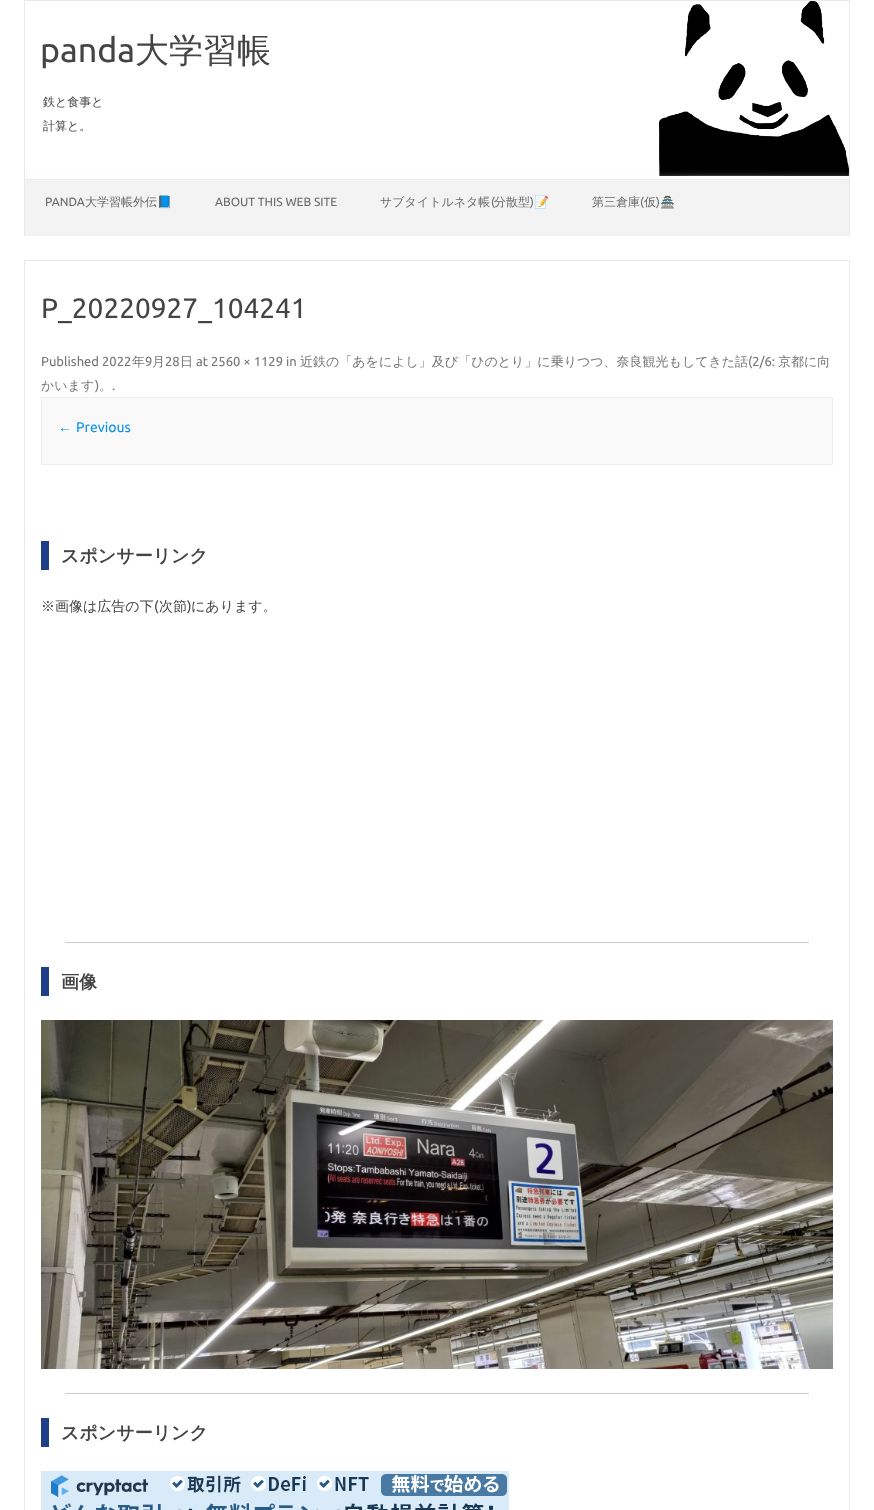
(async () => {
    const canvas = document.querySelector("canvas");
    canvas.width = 874;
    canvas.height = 1510;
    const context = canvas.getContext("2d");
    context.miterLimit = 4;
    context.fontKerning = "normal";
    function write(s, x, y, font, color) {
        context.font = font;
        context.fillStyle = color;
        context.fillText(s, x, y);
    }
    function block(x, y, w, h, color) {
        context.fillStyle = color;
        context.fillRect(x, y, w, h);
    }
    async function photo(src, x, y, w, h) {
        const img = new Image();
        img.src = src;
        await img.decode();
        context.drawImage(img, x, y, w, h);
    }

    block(0, 0, 874, 1510, "rgb(255, 255, 255)");
    await photo("media/1.png", 659, 1, 190, 175);
    block(24, 0, 826, 1, "rgb(233, 233, 233)");
    block(849, 0, 1, 236, "rgb(233, 233, 233)");
    block(24, 0, 1, 236, "rgb(233, 233, 233)");
    write("panda", 40, 62, "34px Ubuntu", "rgb(68, 68, 68)");
    write("大学習帳", 135, 62, "500 34px WenQuanYi Zen Hei", "rgb(68, 68, 68)");
    write("鉄と食事と", 43, 106, "500 12px WenQuanYi Zen Hei", "rgb(68, 68, 68)");
    write("計算と。", 43, 130, "500 12px WenQuanYi Zen Hei", "rgb(68, 68, 68)");
    context.strokeStyle = "rgb(233, 233, 233)";
    context.strokeRect(24.5, 260.5, 825, 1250);
    context.save();
    context.beginPath();
    context.rect(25, 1, 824, 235);
    context.clip();
    context.fillStyle = "rgb(248, 248, 248)";
    context.filter = "blur(4.5px)";
    context.beginPath();
    context.rect(25, 180, 826, 97);
    context.fill();
    context.filter = "none";
    context.restore();
    block(25, 180, 824, 56, "rgb(243, 243, 243)");
    block(25, 179, 824, 1, "rgb(237, 237, 237)");
    write("PANDA", 45, 206, "12px Ubuntu", "rgb(106, 106, 106)");
    write("大学習帳外伝", 85, 206, "500 12px WenQuanYi Zen Hei", "rgb(106, 106, 106)");
    write("📘", 157, 206, "12px Noto Color Emoji", "rgb(106, 106, 106)");
    write("ABOUT THIS WEB SITE", 215, 206, "12px Ubuntu", "rgb(106, 106, 106)");
    write("サブタイトルネタ帳", 380, 206, "500 12px WenQuanYi Zen Hei", "rgb(106, 106, 106)");
    write("(", 491, 206, "12px Ubuntu", "rgb(106, 106, 106)");
    write("分散型", 494, 206, "500 12px WenQuanYi Zen Hei", "rgb(106, 106, 106)");
    write(")", 530, 206, "12px Ubuntu", "rgb(106, 106, 106)");
    write("📝", 534, 206, "12px Noto Color Emoji", "rgb(106, 106, 106)");
    write("第三倉庫", 592, 206, "500 12px WenQuanYi Zen Hei", "rgb(106, 106, 106)");
    write("(", 640, 206, "12px Ubuntu", "rgb(106, 106, 106)");
    write("仮", 644, 206, "500 12px WenQuanYi Zen Hei", "rgb(106, 106, 106)");
    write(")", 656, 206, "12px Ubuntu", "rgb(106, 106, 106)");
    write("🏯", 660, 206, "12px Noto Color Emoji", "rgb(106, 106, 106)");
    write("P_20220927_104241", 41, 318, "28px Ubuntu", "rgb(68, 68, 68)");
    write("Published 2022", 41, 366, "13px Ubuntu", "rgb(117, 117, 117)");
    write("年", 132, 366, "500 13px WenQuanYi Zen Hei", "rgb(117, 117, 117)");
    write("9", 145, 366, "13px Ubuntu", "rgb(117, 117, 117)");
    write("月", 152, 366, "500 13px WenQuanYi Zen Hei", "rgb(117, 117, 117)");
    write("28", 165, 366, "13px Ubuntu", "rgb(117, 117, 117)");
    write("日", 180, 366, "500 13px WenQuanYi Zen Hei", "rgb(117, 117, 117)");
    write("at 2560 × 1129 in", 196, 366, "13px Ubuntu", "rgb(117, 117, 117)");
    write("近鉄の「あをによし」及び「ひのとり」に乗りつつ、奈良観光もしてきた話", 300, 366, "500 13px WenQuanYi Zen Hei", "rgb(117, 117, 117)");
    write("(2/6:", 748, 366, "13px Ubuntu", "rgb(117, 117, 117)");
    write("京都に向", 778, 366, "500 13px WenQuanYi Zen Hei", "rgb(117, 117, 117)");
    write("かいます", 41, 390, "500 13px WenQuanYi Zen Hei", "rgb(117, 117, 117)");
    write(")", 95, 390, "13px Ubuntu", "rgb(117, 117, 117)");
    write("。", 99, 390, "500 13px WenQuanYi Zen Hei", "rgb(117, 117, 117)");
    write(".", 112, 390, "13px Ubuntu", "rgb(117, 117, 117)");
    context.fillStyle = "rgb(249, 249, 249)";
    context.beginPath();
    context.rect(41.5, 397.5, 791, 67);
    context.fill();
    context.strokeStyle = "rgb(237, 237, 237)";
    context.stroke();
    write("←", 58, 432, "14px Liberation Sans", "rgb(11, 145, 234)");
    write("Previous", 76, 432, "14px Ubuntu", "rgb(11, 145, 234)");
    block(41, 541, 8, 29, "rgb(30, 62, 138)");
    write("スポンサーリンク", 61, 562, "bold 18px WenQuanYi Zen Hei", "rgb(68, 68, 68)");
    write("※画像は広告の下", 41, 611, "500 14px WenQuanYi Zen Hei", "rgb(68, 68, 68)");
    write("(", 154, 611, "14px Ubuntu", "rgb(68, 68, 68)");
    write("次節", 159, 611, "500 14px WenQuanYi Zen Hei", "rgb(68, 68, 68)");
    write(")", 187, 611, "14px Ubuntu", "rgb(68, 68, 68)");
    write("にあります。", 191, 611, "500 14px WenQuanYi Zen Hei", "rgb(68, 68, 68)");
    block(65, 942, 744, 1, "rgb(204, 204, 204)");
    block(41, 967, 8, 29, "rgb(30, 62, 138)");
    write("画像", 61, 988, "bold 18px WenQuanYi Zen Hei", "rgb(68, 68, 68)");
    await photo("media/2.png", 41, 1020, 792, 349);
    block(65, 1393, 744, 1, "rgb(204, 204, 204)");
    block(41, 1418, 8, 29, "rgb(30, 62, 138)");
    write("スポンサーリンク", 61, 1439, "bold 18px WenQuanYi Zen Hei", "rgb(68, 68, 68)");
    await photo("media/3.png", 41, 1471, 468, 39);
})();
